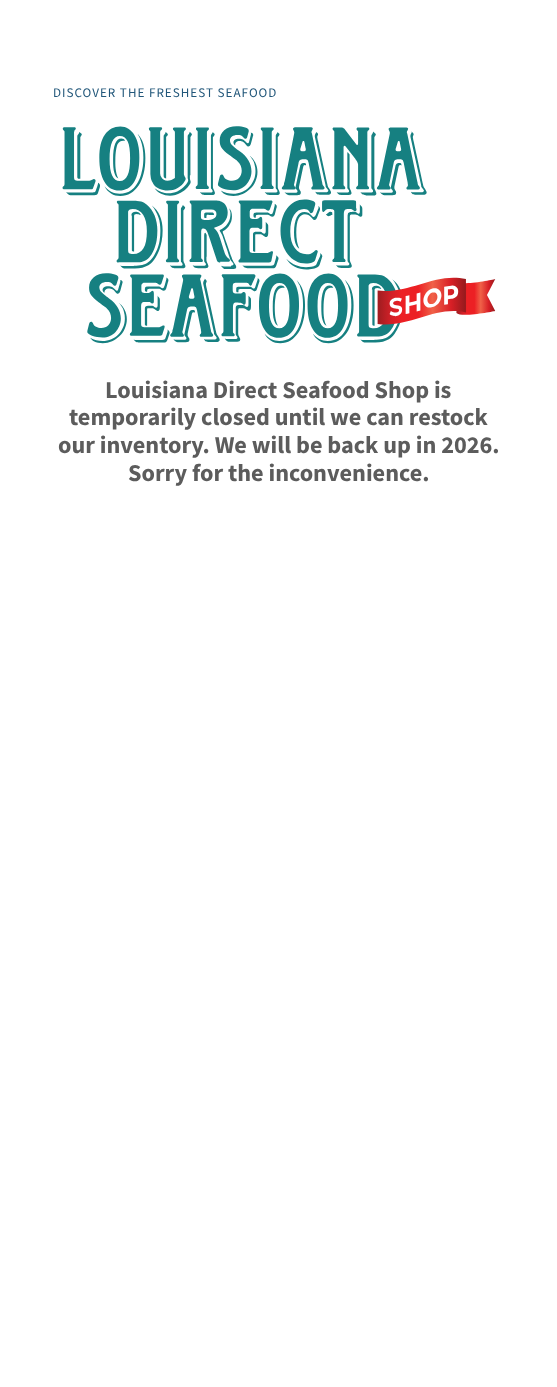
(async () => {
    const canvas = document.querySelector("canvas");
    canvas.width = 557;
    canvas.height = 1387;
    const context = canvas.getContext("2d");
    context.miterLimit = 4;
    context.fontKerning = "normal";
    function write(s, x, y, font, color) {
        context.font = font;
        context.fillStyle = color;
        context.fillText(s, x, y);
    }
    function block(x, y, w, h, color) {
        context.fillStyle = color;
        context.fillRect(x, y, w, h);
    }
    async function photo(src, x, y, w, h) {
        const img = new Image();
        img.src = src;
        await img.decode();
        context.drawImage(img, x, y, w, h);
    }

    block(0, 0, 557, 1387, "rgb(255, 255, 255)");
    context.letterSpacing = "1px";
    write("DISCOVER THE FRESHEST SEAFOOD", 53, 97, "13.1px Source Sans Pro", "rgb(34, 87, 122)");
    await photo("media/1.png", 62, 126, 434, 218);
    context.letterSpacing = "0px";
    write("Louisiana Direct Seafood Shop is", 105, 398, "bold 24.25px Source Sans Pro", "rgb(92, 92, 92)");
    write("temporarily closed until we can restock", 69, 425, "bold 24.25px Source Sans Pro", "rgb(92, 92, 92)");
    write("our inventory. We will be back up in 2026.", 58, 453, "bold 24.25px Source Sans Pro", "rgb(92, 92, 92)");
    write("Sorry for the inconvenience.", 128, 481, "bold 24.25px Source Sans Pro", "rgb(92, 92, 92)");
})();
